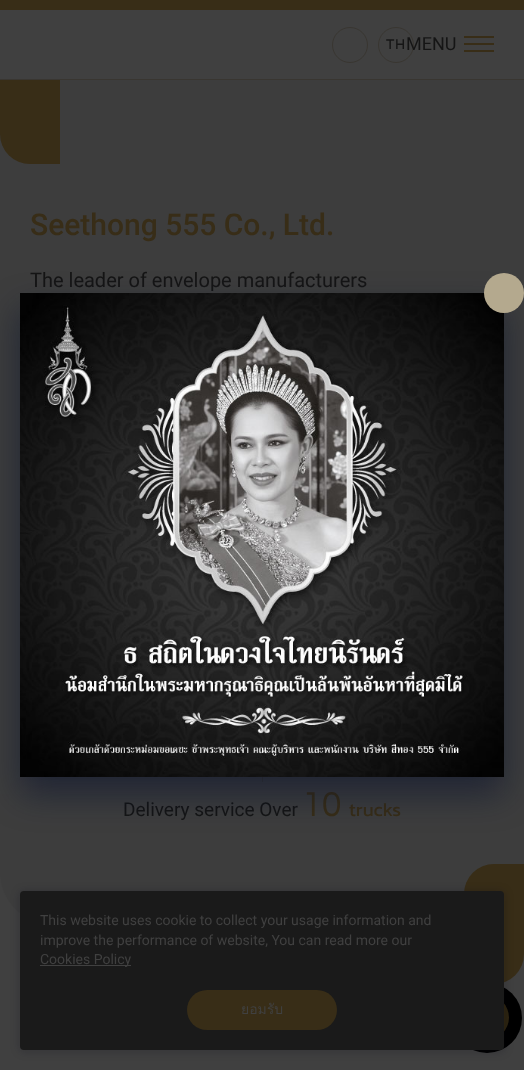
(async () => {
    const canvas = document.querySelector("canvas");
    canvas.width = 524;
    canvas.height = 1070;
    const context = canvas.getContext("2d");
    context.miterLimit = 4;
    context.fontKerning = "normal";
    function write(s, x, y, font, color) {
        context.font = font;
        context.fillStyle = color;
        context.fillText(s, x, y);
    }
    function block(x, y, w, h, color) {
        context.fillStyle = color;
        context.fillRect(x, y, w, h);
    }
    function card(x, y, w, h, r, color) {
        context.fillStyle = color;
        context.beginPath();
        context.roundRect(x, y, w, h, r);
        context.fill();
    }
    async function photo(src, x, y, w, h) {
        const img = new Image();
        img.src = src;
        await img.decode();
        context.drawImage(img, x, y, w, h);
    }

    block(0, 0, 524, 1070, "rgb(64, 64, 64)");
    context.fillStyle = "rgb(61, 61, 61)";
    context.beginPath();
    context.roundRect(0, 104, 524, 820, [0, 0, 31, 52]);
    context.fill();
    context.fillStyle = "rgb(56, 45, 23)";
    context.beginPath();
    context.roundRect(0, 44, 60, 120, [0, 30, 0, 30]);
    context.fill();
    block(0, 44, 60, 35, "rgb(64, 64, 64)");
    block(0, 0, 524, 10, "rgb(56, 45, 23)");
    context.beginPath();
    context.arc(350, 45, 17.5, 0, Math.PI * 2);
    context.strokeStyle = "rgb(57, 54, 49)";
    context.stroke();
    context.beginPath();
    context.arc(396, 45, 17.5, 0, Math.PI * 2);
    context.stroke();
    context.letterSpacing = "1px";
    write("TH", 386, 49, "bold 14px Questrial", "rgb(21, 21, 21)");
    block(0, 79, 524, 1, "rgb(57, 54, 49)");
    context.letterSpacing = "0px";
    write("MENU", 406, 50, "18px Roboto", "rgb(21, 21, 21)");
    block(464, 43, 30, 2, "rgb(56, 45, 23)");
    block(464, 36, 30, 2, "rgb(56, 45, 23)");
    block(464, 50, 30, 2, "rgb(56, 45, 23)");
    block(60, 80, 464, 24, "rgb(61, 61, 61)");
    write("Seethong 555 Co., Ltd.", 30, 235, "500 30px Roboto", "rgb(56, 45, 23)");
    write("The leader of envelope manufacturers", 30, 287, "20px Roboto", "rgb(21, 21, 21)");
    block(262, 777, 1, 5, "rgb(57, 54, 49)");
    write("Delivery service Over", 123, 816, "19px Roboto", "rgb(21, 21, 21)");
    write("10", 302, 816, "36px Questrial", "rgb(56, 45, 23)");
    write("trucks", 349, 816, "19px Kanit", "rgb(56, 45, 23)");
    context.fillStyle = "rgba(1, 12, 41, 0.5)";
    context.filter = "blur(17px)";
    context.beginPath();
    context.rect(20, 310, 484, 484);
    context.fill();
    context.filter = "none";
    await photo("media/1.png", 20, 293, 484, 484);
    context.fillStyle = "rgb(180, 169, 142)";
    context.beginPath();
    context.arc(504, 293, 20, 0, Math.PI * 2);
    context.fill();
    context.fillStyle = "rgb(56, 45, 23)";
    context.beginPath();
    context.roundRect(464, 864, 60, 120, [30, 0, 30, 0]);
    context.fill();
    context.fillStyle = "rgb(0, 0, 0)";
    context.beginPath();
    context.arc(487, 1018, 35, 0, Math.PI * 2);
    context.fill();
    context.fillStyle = "rgb(45, 36, 16)";
    context.beginPath();
    context.arc(486.5, 1017.5, 22.5, 0, Math.PI * 2);
    context.fill();
    context.fillStyle = "rgba(3, 6, 21, 0.2)";
    context.filter = "blur(4px)";
    context.beginPath();
    context.roundRect(19, 891, 486, 161, 5);
    context.fill();
    context.filter = "none";
    card(20, 891, 484, 159, 4, "rgb(26, 26, 26)");
    write("This website uses cookie to collect your usage information and", 40, 925, "14px Roboto", "rgb(64, 64, 64)");
    write("improve the performance of website, You can read more our", 40, 945, "14px Roboto", "rgb(64, 64, 64)");
    block(40, 965, 91, 1, "rgb(64, 64, 64)");
    write("Cookies Policy", 40, 964, "14px Roboto", "rgb(64, 64, 64)");
    card(187, 990, 150, 40, 20, "rgb(56, 45, 23)");
    write("ยอมรับ", 241, 1014, "14px Loma", "rgb(64, 64, 64)");
})();
